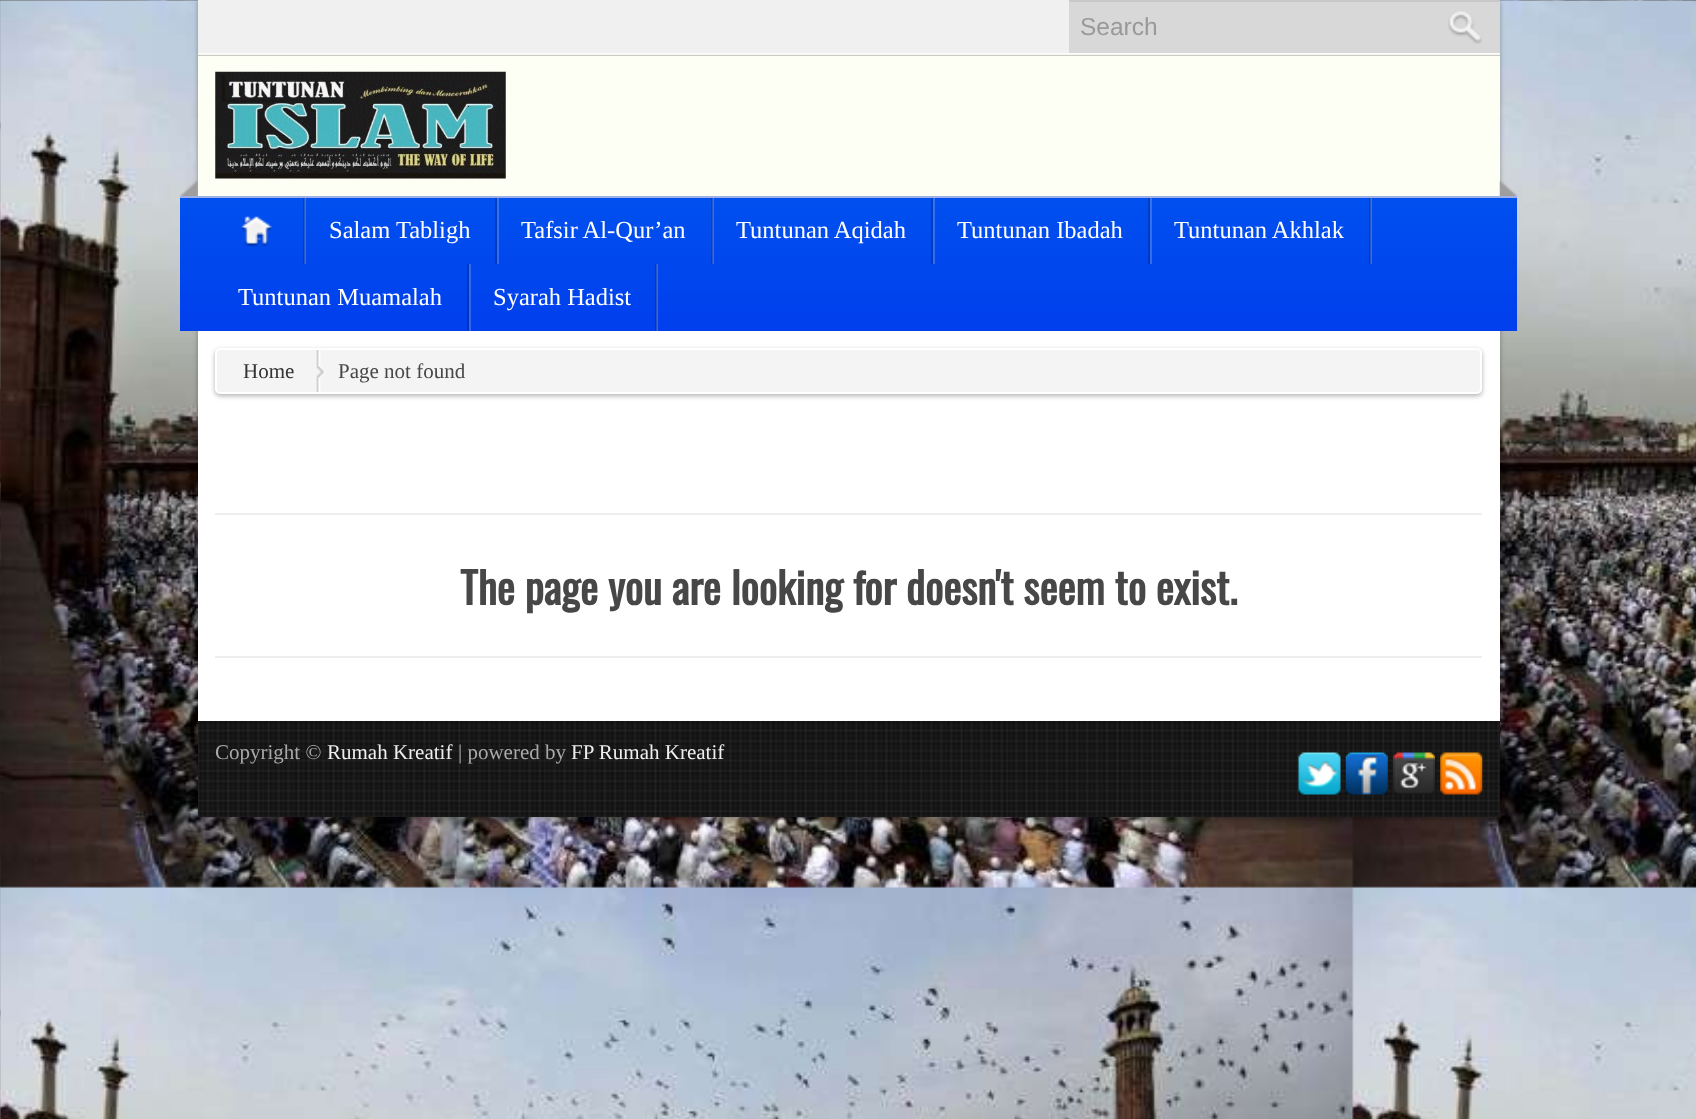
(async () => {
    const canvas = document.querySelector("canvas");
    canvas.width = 1696;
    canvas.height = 1119;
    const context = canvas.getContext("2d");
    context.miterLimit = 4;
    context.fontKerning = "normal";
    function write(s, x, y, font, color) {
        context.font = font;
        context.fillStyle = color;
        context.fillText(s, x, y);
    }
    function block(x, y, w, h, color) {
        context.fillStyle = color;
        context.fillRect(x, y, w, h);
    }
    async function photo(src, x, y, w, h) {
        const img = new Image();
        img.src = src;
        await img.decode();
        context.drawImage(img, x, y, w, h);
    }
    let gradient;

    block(0, 0, 1696, 1119, "rgb(255, 255, 255)");
    await photo("media/1.png", 0, 0, 1696, 1119);
    context.fillStyle = "rgba(0, 0, 0, 0.3)";
    context.filter = "blur(2.5px)";
    context.beginPath();
    context.rect(198, 2, 1302, 817);
    context.fill();
    context.filter = "none";
    block(198, 331, 1302, 390, "rgb(255, 255, 255)");
    block(198, 56, 1302, 140, "rgb(253, 255, 245)");
    context.fillStyle = "rgb(202, 204, 196)";
    context.beginPath();
    context.moveTo(198, 54);
    context.lineTo(198, 56);
    context.lineTo(1500, 56);
    context.lineTo(1500, 2);
    context.lineTo(1500, 54);
    context.closePath();
    context.fill();
    block(198, 0, 1302, 54, "rgb(240, 240, 240)");
    block(198, 53, 1302, 2, "rgba(255, 255, 255, 0.8)");
    block(1069, 2, 431, 51, "rgb(216, 216, 216)");
    block(1069, 0, 431, 2, "rgb(200, 200, 200)");
    write("Search", 1080, 35, "24.5px Liberation Sans", "rgb(153, 153, 153)");
    await photo("media/2.png", 1448, 11, 34, 33);
    await photo("media/3.png", 215, 71, 291, 108);
    await photo("media/4.png", 180, 180, 18, 16);
    await photo("media/5.png", 1499, 180, 19, 16);
    gradient = context.createLinearGradient(849, 198, 849, 331);
    gradient.addColorStop(0, "rgb(0, 80, 239)");
    gradient.addColorStop(1, "rgb(0, 63, 237)");
    context.fillStyle = gradient;
    context.fillRect(180, 198, 1337, 133);
    block(180, 196, 1337, 2, "rgb(158, 176, 229)");
    block(304, 198, 2, 66, "rgba(255, 255, 255, 0.2)");
    block(303, 198, 2, 66, "rgba(0, 0, 0, 0.2)");
    await photo("media/6.png", 241, 216, 31, 31);
    block(497, 198, 2, 66, "rgba(255, 255, 255, 0.2)");
    block(495, 198, 2, 66, "rgba(0, 0, 0, 0.2)");
    write("Salam Tabligh", 329, 238, "24.5px Tinos", "rgb(255, 255, 255)");
    block(712, 198, 2, 66, "rgba(255, 255, 255, 0.2)");
    block(711, 198, 2, 66, "rgba(0, 0, 0, 0.2)");
    write("Tafsir Al-Qur’an", 521, 238, "24.5px Tinos", "rgb(255, 255, 255)");
    block(933, 198, 2, 66, "rgba(255, 255, 255, 0.2)");
    block(931, 198, 2, 66, "rgba(0, 0, 0, 0.2)");
    write("Tuntunan Aqidah", 736, 238, "24.5px Tinos", "rgb(255, 255, 255)");
    block(1150, 198, 2, 66, "rgba(255, 255, 255, 0.2)");
    block(1148, 198, 2, 66, "rgba(0, 0, 0, 0.2)");
    write("Tuntunan Ibadah", 957, 238, "24.5px Tinos", "rgb(255, 255, 255)");
    block(1370, 198, 2, 66, "rgba(255, 255, 255, 0.2)");
    block(1369, 198, 2, 66, "rgba(0, 0, 0, 0.2)");
    write("Tuntunan Akhlak", 1174, 238, "24.5px Tinos", "rgb(255, 255, 255)");
    context.fillStyle = "rgba(255, 255, 255, 0.2)";
    context.beginPath();
    context.moveTo(215, 264);
    context.lineTo(469, 264);
    context.lineTo(469, 331);
    context.lineTo(215, 331);
    context.lineTo(471, 331);
    context.lineTo(471, 264);
    context.closePath();
    context.fill();
    block(467, 264, 2, 67, "rgba(0, 0, 0, 0.2)");
    write("Tuntunan Muamalah", 238, 305, "24.5px Tinos", "rgb(255, 255, 255)");
    context.fillStyle = "rgba(255, 255, 255, 0.2)";
    context.beginPath();
    context.moveTo(471, 264);
    context.lineTo(656, 264);
    context.lineTo(656, 331);
    context.lineTo(471, 331);
    context.lineTo(658, 331);
    context.lineTo(658, 264);
    context.closePath();
    context.fill();
    block(655, 264, 2, 67, "rgba(0, 0, 0, 0.2)");
    write("Syarah Hadist", 493, 305, "24.5px Tinos", "rgb(255, 255, 255)");
    context.fillStyle = "rgba(0, 0, 0, 0.3)";
    context.filter = "blur(2.5px)";
    context.beginPath();
    context.roundRect(215, 350, 1267, 46, 5);
    context.fill();
    context.filter = "none";
    context.fillStyle = "rgb(244, 244, 244)";
    context.beginPath();
    context.roundRect(216, 349, 1265, 44, 4);
    context.fill();
    context.strokeStyle = "rgb(255, 255, 255)";
    context.lineWidth = 2;
    context.stroke();
    await photo("media/7.png", 316, 350, 10, 42);
    write("Home", 243, 378, "21px Tinos", "rgb(51, 51, 51)");
    write("Page not found", 338, 378, "21px Tinos", "rgb(71, 71, 71)");
    block(215, 513, 1267, 2, "rgb(238, 238, 238)");
    write("The page you are looking for doesn't seem to exist.", 460, 605, "bold 42.9px Oswald", "rgb(71, 71, 71)");
    block(215, 656, 1267, 2, "rgb(238, 238, 238)");
    block(198, 721, 1302, 96, "rgb(17, 17, 17)");
    await photo("media/8.png", 198, 721, 1302, 96);
    write("Copyright ©", 215, 759, "21px Tinos", "rgb(170, 170, 170)");
    write("Rumah Kreatif", 327, 759, "21px Tinos", "rgb(239, 239, 239)");
    write("| powered by", 458, 759, "21px Tinos", "rgb(170, 170, 170)");
    write("FP Rumah Kreatif", 571, 759, "21px Tinos", "rgb(239, 239, 239)");
    await photo("media/9.png", 1298, 752, 43, 43);
    await photo("media/10.png", 1345, 752, 43, 43);
    await photo("media/11.png", 1393, 752, 42, 42);
    await photo("media/12.png", 1440, 752, 43, 43);
})();
